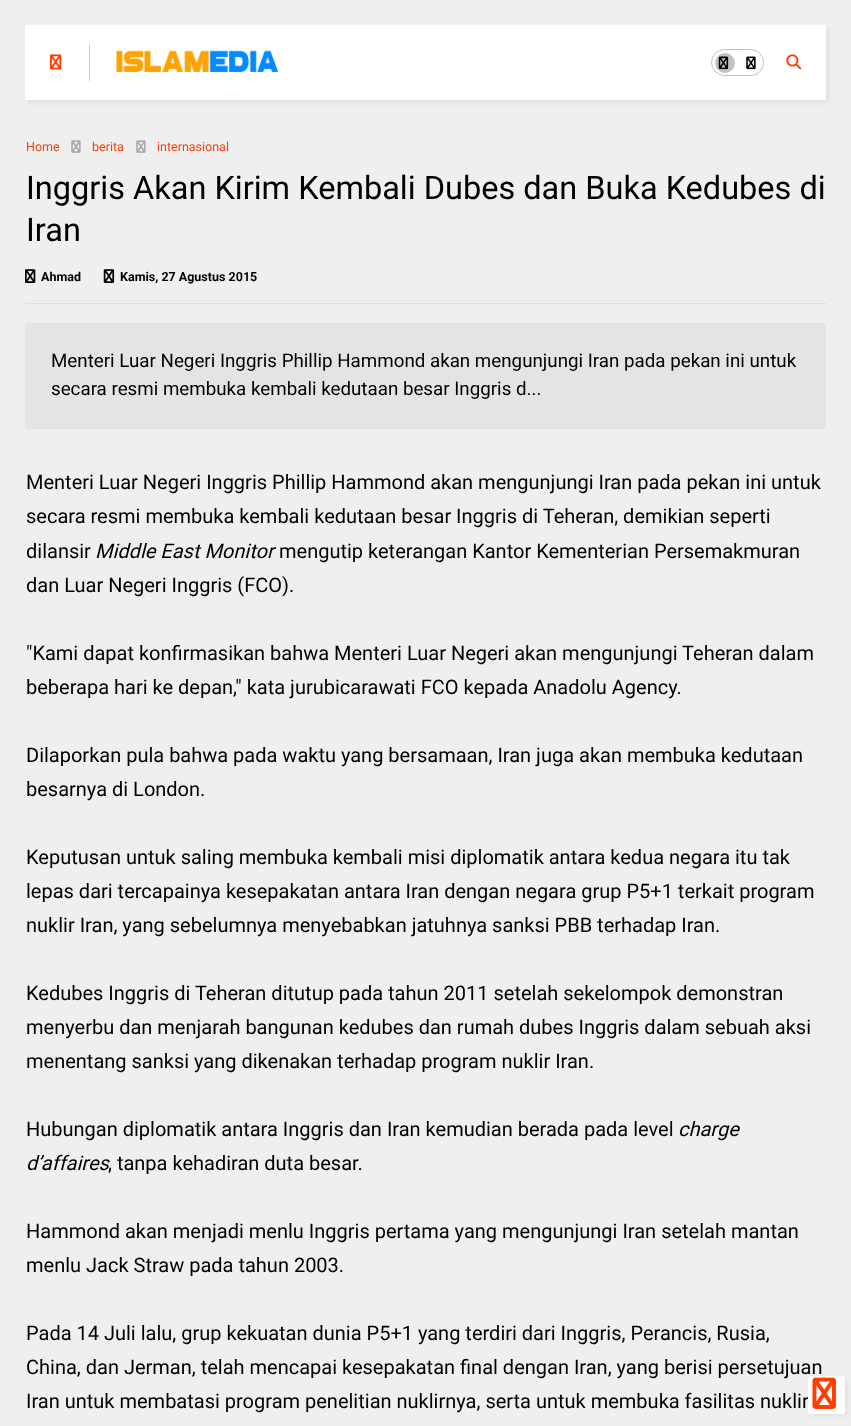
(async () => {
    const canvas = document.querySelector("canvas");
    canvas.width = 851;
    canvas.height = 1426;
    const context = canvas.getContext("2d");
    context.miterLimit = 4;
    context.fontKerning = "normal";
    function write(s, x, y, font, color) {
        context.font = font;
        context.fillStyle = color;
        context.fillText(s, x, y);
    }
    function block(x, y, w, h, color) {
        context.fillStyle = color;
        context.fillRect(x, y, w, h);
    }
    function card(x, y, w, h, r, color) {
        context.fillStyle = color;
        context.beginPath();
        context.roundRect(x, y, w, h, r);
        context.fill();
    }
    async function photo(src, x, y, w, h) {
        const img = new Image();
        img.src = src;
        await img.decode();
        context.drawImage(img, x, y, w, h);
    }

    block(0, 0, 851, 1426, "rgb(239, 239, 239)");
    context.fillStyle = "rgba(120, 120, 120, 0.12)";
    context.filter = "blur(2px)";
    context.beginPath();
    context.rect(28, 28, 801, 75);
    context.fill();
    context.filter = "none";
    block(25, 25, 801, 75, "rgb(255, 255, 255)");
    await photo("media/1.png", 50, 54, 12, 16);
    block(89, 44, 1, 37, "rgb(207, 207, 207)");
    await photo("media/2.png", 116, 50, 163, 22);
    context.beginPath();
    context.roundRect(711.5, 49.5, 52, 26, 13);
    context.strokeStyle = "rgb(191, 191, 191)";
    context.stroke();
    context.fillStyle = "rgb(194, 194, 194)";
    context.beginPath();
    context.arc(725, 63, 10, 0, Math.PI * 2);
    context.fill();
    await photo("media/3.png", 718, 56, 11, 14);
    await photo("media/4.png", 746, 56, 10, 14);
    await photo("media/5.png", 786, 54, 16, 16);
    write("Home", 26, 151, "12.5px Roboto", "rgb(255, 61, 0)");
    await photo("media/6.png", 71, 140, 10, 13);
    write("berita", 92, 151, "12.5px Roboto", "rgb(255, 61, 0)");
    await photo("media/6.png", 136, 140, 10, 13);
    write("internasional", 157, 151, "12.5px Roboto", "rgb(255, 61, 0)");
    write("Inggris Akan Kirim Kembali Dubes dan Buka Kedubes di", 26, 199, "32.5px Roboto", "rgb(0, 0, 0)");
    write("Iran", 26, 241, "32.5px Roboto", "rgb(0, 0, 0)");
    block(25, 303, 801, 1, "rgb(221, 221, 221)");
    await photo("media/7.png", 25, 269, 11, 14);
    write("Ahmad", 41, 281, "bold 12.5px Roboto", "rgb(0, 0, 0)");
    await photo("media/8.png", 103, 269, 12, 14);
    write("Kamis, 27 Agustus 2015", 120, 281, "bold 12.5px Roboto", "rgb(0, 0, 0)");
    block(25, 323, 801, 106, "rgb(228, 228, 228)");
    write("Menteri Luar Negeri Inggris Phillip Hammond akan mengunjungi Iran pada pekan ini untuk", 51, 367, "18.75px Roboto", "rgb(0, 0, 0)");
    write("secara resmi membuka kembali kedutaan besar Inggris d...", 51, 395, "18.75px Roboto", "rgb(0, 0, 0)");
    write("Menteri Luar Negeri Inggris Phillip Hammond akan mengunjungi Iran pada pekan ini untuk", 26, 489, "20px Roboto", "rgb(0, 0, 0)");
    write("secara resmi membuka kembali kedutaan besar Inggris di Teheran, demikian seperti", 26, 523, "20px Roboto", "rgb(0, 0, 0)");
    write("dilansir", 26, 558, "20px Roboto", "rgb(0, 0, 0)");
    write("Middle East Monitor", 95, 558, "italic 20px Roboto", "rgb(0, 0, 0)");
    write("mengutip keterangan Kantor Kementerian Persemakmuran", 279, 558, "20px Roboto", "rgb(0, 0, 0)");
    write("dan Luar Negeri Inggris (FCO).", 26, 592, "20px Roboto", "rgb(0, 0, 0)");
    write("\"Kami dapat konfirmasikan bahwa Menteri Luar Negeri akan mengunjungi Teheran dalam", 26, 660, "20px Roboto", "rgb(0, 0, 0)");
    write("beberapa hari ke depan,\" kata jurubicarawati FCO kepada Anadolu Agency.", 26, 694, "20px Roboto", "rgb(0, 0, 0)");
    write("Dilaporkan pula bahwa pada waktu yang bersamaan, Iran juga akan membuka kedutaan", 26, 762, "20px Roboto", "rgb(0, 0, 0)");
    write("besarnya di London.", 26, 796, "20px Roboto", "rgb(0, 0, 0)");
    write("Keputusan untuk saling membuka kembali misi diplomatik antara kedua negara itu tak", 26, 864, "20px Roboto", "rgb(0, 0, 0)");
    write("lepas dari tercapainya kesepakatan antara Iran dengan negara grup P5+1 terkait program", 26, 898, "20px Roboto", "rgb(0, 0, 0)");
    write("nuklir Iran, yang sebelumnya menyebabkan jatuhnya sanksi PBB terhadap Iran.", 26, 932, "20px Roboto", "rgb(0, 0, 0)");
    write("Kedubes Inggris di Teheran ditutup pada tahun 2011 setelah sekelompok demonstran", 26, 1000, "20px Roboto", "rgb(0, 0, 0)");
    write("menyerbu dan menjarah bangunan kedubes dan rumah dubes Inggris dalam sebuah aksi", 26, 1034, "20px Roboto", "rgb(0, 0, 0)");
    write("menentang sanksi yang dikenakan terhadap program nuklir Iran.", 26, 1068, "20px Roboto", "rgb(0, 0, 0)");
    write("Hubungan diplomatik antara Inggris dan Iran kemudian berada pada level", 26, 1136, "20px Roboto", "rgb(0, 0, 0)");
    write("charge", 678, 1136, "italic 20px Roboto", "rgb(0, 0, 0)");
    write("d’affaires", 26, 1170, "italic 20px Roboto", "rgb(0, 0, 0)");
    write(", tanpa kehadiran duta besar.", 108, 1170, "20px Roboto", "rgb(0, 0, 0)");
    write("Hammond akan menjadi menlu Inggris pertama yang mengunjungi Iran setelah mantan", 26, 1238, "20px Roboto", "rgb(0, 0, 0)");
    write("menlu Jack Straw pada tahun 2003.", 26, 1272, "20px Roboto", "rgb(0, 0, 0)");
    write("Pada 14 Juli lalu, grup kekuatan dunia P5+1 yang terdiri dari Inggris, Perancis, Rusia,", 26, 1340, "20px Roboto", "rgb(0, 0, 0)");
    write("China, dan Jerman, telah mencapai kesepakatan final dengan Iran, yang berisi persetujuan", 26, 1374, "20px Roboto", "rgb(0, 0, 0)");
    write("Iran untuk membatasi program penelitian nuklirnya, serta untuk membuka fasilitas nuklir", 26, 1408, "20px Roboto", "rgb(0, 0, 0)");
    context.fillStyle = "rgba(0, 0, 0, 0.05)";
    context.filter = "blur(2px)";
    context.beginPath();
    context.roundRect(810, 1379, 38, 37, 2.5);
    context.fill();
    context.filter = "none";
    card(808, 1376, 37, 38, 2.5, "rgb(255, 255, 255)");
    await photo("media/9.png", 812, 1377, 24, 32);
})();
